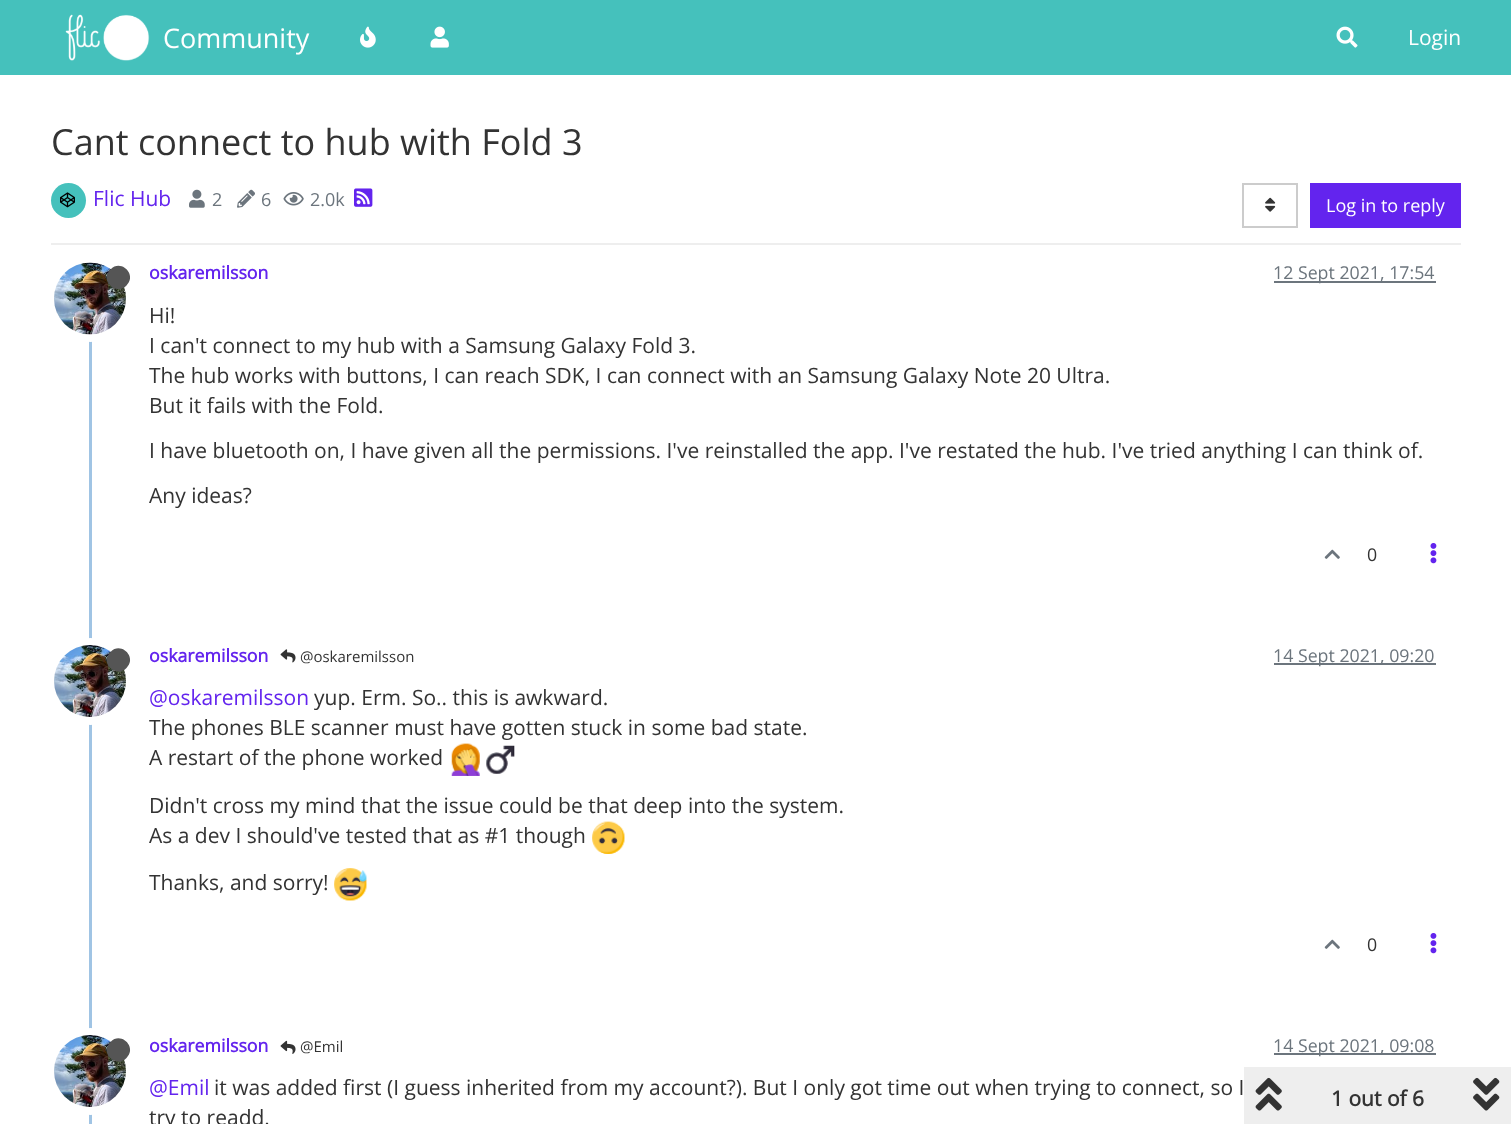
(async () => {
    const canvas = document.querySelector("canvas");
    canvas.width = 1511;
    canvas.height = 1124;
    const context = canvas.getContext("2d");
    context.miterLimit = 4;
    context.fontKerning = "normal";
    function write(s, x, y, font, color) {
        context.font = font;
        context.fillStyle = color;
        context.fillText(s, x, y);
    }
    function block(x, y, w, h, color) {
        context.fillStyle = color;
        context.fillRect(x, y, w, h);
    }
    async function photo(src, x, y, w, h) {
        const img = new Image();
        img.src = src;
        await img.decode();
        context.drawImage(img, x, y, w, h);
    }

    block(0, 0, 1511, 1124, "rgb(255, 255, 255)");
    block(0, 0, 1511, 75, "rgb(69, 193, 188)");
    await photo("media/1.png", 65, 14, 85, 47);
    write("Community", 163, 48, "27px Open Sans", "rgb(255, 255, 255)");
    await photo("media/2.png", 360, 26, 16, 22);
    await photo("media/3.png", 430, 26, 19, 22);
    await photo("media/4.png", 1336, 26, 22, 22);
    write("Login", 1408, 45, "21px Open Sans", "rgb(255, 255, 255)");
    write("Cant connect to hub with Fold 3", 51, 155, "36px Open Sans", "rgb(51, 51, 51)");
    block(51, 243, 1410, 2, "rgb(238, 238, 238)");
    context.fillStyle = "rgb(69, 193, 188)";
    context.beginPath();
    context.arc(68.5, 200.5, 17.5, 0, Math.PI * 2);
    context.fill();
    await photo("media/5.png", 60, 192, 15, 16);
    write("Flic Hub", 93, 206, "21px Open Sans", "rgb(99, 36, 238)");
    await photo("media/6.png", 189, 189, 16, 19);
    write("2", 212, 206, "18px Open Sans", "rgb(108, 117, 125)");
    await photo("media/7.png", 237, 189, 18, 19);
    write("6", 261, 206, "18px Open Sans", "rgb(108, 117, 125)");
    await photo("media/8.png", 283, 192, 21, 14);
    write("2.0k", 310, 206, "18px Open Sans", "rgb(108, 117, 125)");
    await photo("media/9.png", 354, 188, 19, 19);
    context.strokeStyle = "rgb(204, 204, 204)";
    context.lineWidth = 2;
    context.strokeRect(1243, 184, 54, 43);
    await photo("media/10.png", 1265, 197, 11, 15);
    block(1310, 183, 151, 45, "rgb(99, 36, 238)");
    write("Log in to reply", 1326, 212, "18px Open Sans", "rgb(255, 255, 255)");
    block(89, 341, 3, 783, "rgb(160, 196, 228)");
    context.beginPath();
    context.arc(90.5, 298.5, 39.5, 0, Math.PI * 2);
    context.strokeStyle = "rgb(255, 255, 255)";
    context.lineWidth = 8;
    context.stroke();
    await photo("media/11.png", 54, 262, 72, 73);
    context.fillStyle = "rgb(85, 85, 85)";
    context.beginPath();
    context.moveTo(110.5, 269.5);
    context.bezierCurveTo(121, 258.5, 137.5, 275, 126.5, 285.5);
    context.bezierCurveTo(116, 296.5, 99.5, 280, 110.5, 269.5);
    context.closePath();
    context.fill();
    write("oskaremilsson", 149, 279, "bold 17.75px Open Sans", "rgb(99, 36, 238)");
    block(1274, 281, 162, 2, "rgb(108, 117, 125)");
    write("12 Sept 2021, 17:54", 1273, 279, "17.75px Open Sans", "rgb(108, 117, 125)");
    write("Hi!", 149, 323, "21px Open Sans", "rgb(51, 51, 51)");
    write("I can't connect to my hub with a Samsung Galaxy Fold 3.", 149, 353, "21px Open Sans", "rgb(51, 51, 51)");
    write("The hub works with buttons, I can reach SDK, I can connect with an Samsung Galaxy Note 20 Ultra.", 149, 383, "21px Open Sans", "rgb(51, 51, 51)");
    write("But it fails with the Fold.", 149, 413, "21px Open Sans", "rgb(51, 51, 51)");
    write("I have bluetooth on, I have given all the permissions. I've reinstalled the app. I've restated the hub. I've tried anything I can think of.", 149, 458, "21px Open Sans", "rgb(51, 51, 51)");
    write("Any ideas?", 149, 503, "21px Open Sans", "rgb(51, 51, 51)");
    await photo("media/12.png", 1324, 549, 16, 10);
    write("0", 1367, 561, "17.75px Open Sans", "rgb(51, 51, 51)");
    await photo("media/13.png", 1430, 543, 7, 21);
    context.beginPath();
    context.arc(90.5, 681.5, 39.5, 0, Math.PI * 2);
    context.stroke();
    await photo("media/14.png", 54, 645, 72, 72);
    context.fillStyle = "rgb(85, 85, 85)";
    context.beginPath();
    context.moveTo(110.5, 652);
    context.bezierCurveTo(121, 641, 137.5, 657.5, 126.5, 668);
    context.bezierCurveTo(116, 679, 99.5, 662.5, 110.5, 652);
    context.closePath();
    context.fill();
    write("oskaremilsson", 149, 662, "bold 17.75px Open Sans", "rgb(99, 36, 238)");
    await photo("media/15.png", 280, 649, 16, 14);
    write("@oskaremilsson", 300, 662, "15px Open Sans", "rgb(51, 51, 51)");
    block(1274, 663, 162, 2, "rgb(108, 117, 125)");
    write("14 Sept 2021, 09:20", 1273, 662, "17.75px Open Sans", "rgb(108, 117, 125)");
    write("@oskaremilsson", 149, 705, "21px Open Sans", "rgb(99, 36, 238)");
    write("yup. Erm. So.. this is awkward.", 314, 705, "21px Open Sans", "rgb(51, 51, 51)");
    write("The phones BLE scanner must have gotten stuck in some bad state.", 149, 735, "21px Open Sans", "rgb(51, 51, 51)");
    write("A restart of the phone worked", 149, 765, "21px Open Sans", "rgb(51, 51, 51)");
    await photo("media/16.png", 451, 743, 29, 33);
    await photo("media/17.png", 486, 745, 29, 29);
    write("Didn't cross my mind that the issue could be that deep into the system.", 149, 813, "21px Open Sans", "rgb(51, 51, 51)");
    write("As a dev I should've tested that as #1 though", 149, 843, "21px Open Sans", "rgb(51, 51, 51)");
    await photo("media/18.png", 592, 821, 33, 33);
    write("Thanks, and sorry!", 149, 890, "21px Open Sans", "rgb(51, 51, 51)");
    await photo("media/19.png", 334, 868, 33, 33);
    await photo("media/12.png", 1324, 939, 16, 10);
    write("0", 1367, 951, "17.75px Open Sans", "rgb(51, 51, 51)");
    await photo("media/13.png", 1430, 933, 7, 21);
    context.beginPath();
    context.arc(90.5, 1071.5, 39.5, 0, Math.PI * 2);
    context.stroke();
    await photo("media/14.png", 54, 1035, 72, 72);
    context.fillStyle = "rgb(85, 85, 85)";
    context.beginPath();
    context.moveTo(110.5, 1042);
    context.bezierCurveTo(121, 1031, 137.5, 1047.5, 126.5, 1058);
    context.bezierCurveTo(116, 1069, 99.5, 1052.5, 110.5, 1042);
    context.closePath();
    context.fill();
    write("oskaremilsson", 149, 1052, "bold 17.75px Open Sans", "rgb(99, 36, 238)");
    await photo("media/20.png", 280, 1040, 16, 14);
    write("@Emil", 300, 1052, "15px Open Sans", "rgb(51, 51, 51)");
    block(1274, 1053, 162, 2, "rgb(108, 117, 125)");
    write("14 Sept 2021, 09:08", 1273, 1052, "17.75px Open Sans", "rgb(108, 117, 125)");
    write("@Emil", 149, 1095, "21px Open Sans", "rgb(99, 36, 238)");
    write("it was added first (I guess inherited from my account?). But I only got time out when trying to connect, so I", 214, 1095, "21px Open Sans", "rgb(51, 51, 51)");
    write("try to readd.", 149, 1125, "21px Open Sans", "rgb(51, 51, 51)");
    block(1244, 1067, 267, 57, "rgb(238, 238, 238)");
    await photo("media/21.png", 1255, 1077, 27, 34);
    write("1 out of 6", 1331, 1106, "bold 21px Open Sans", "rgb(51, 51, 51)");
    await photo("media/22.png", 1473, 1077, 27, 34);
})();
